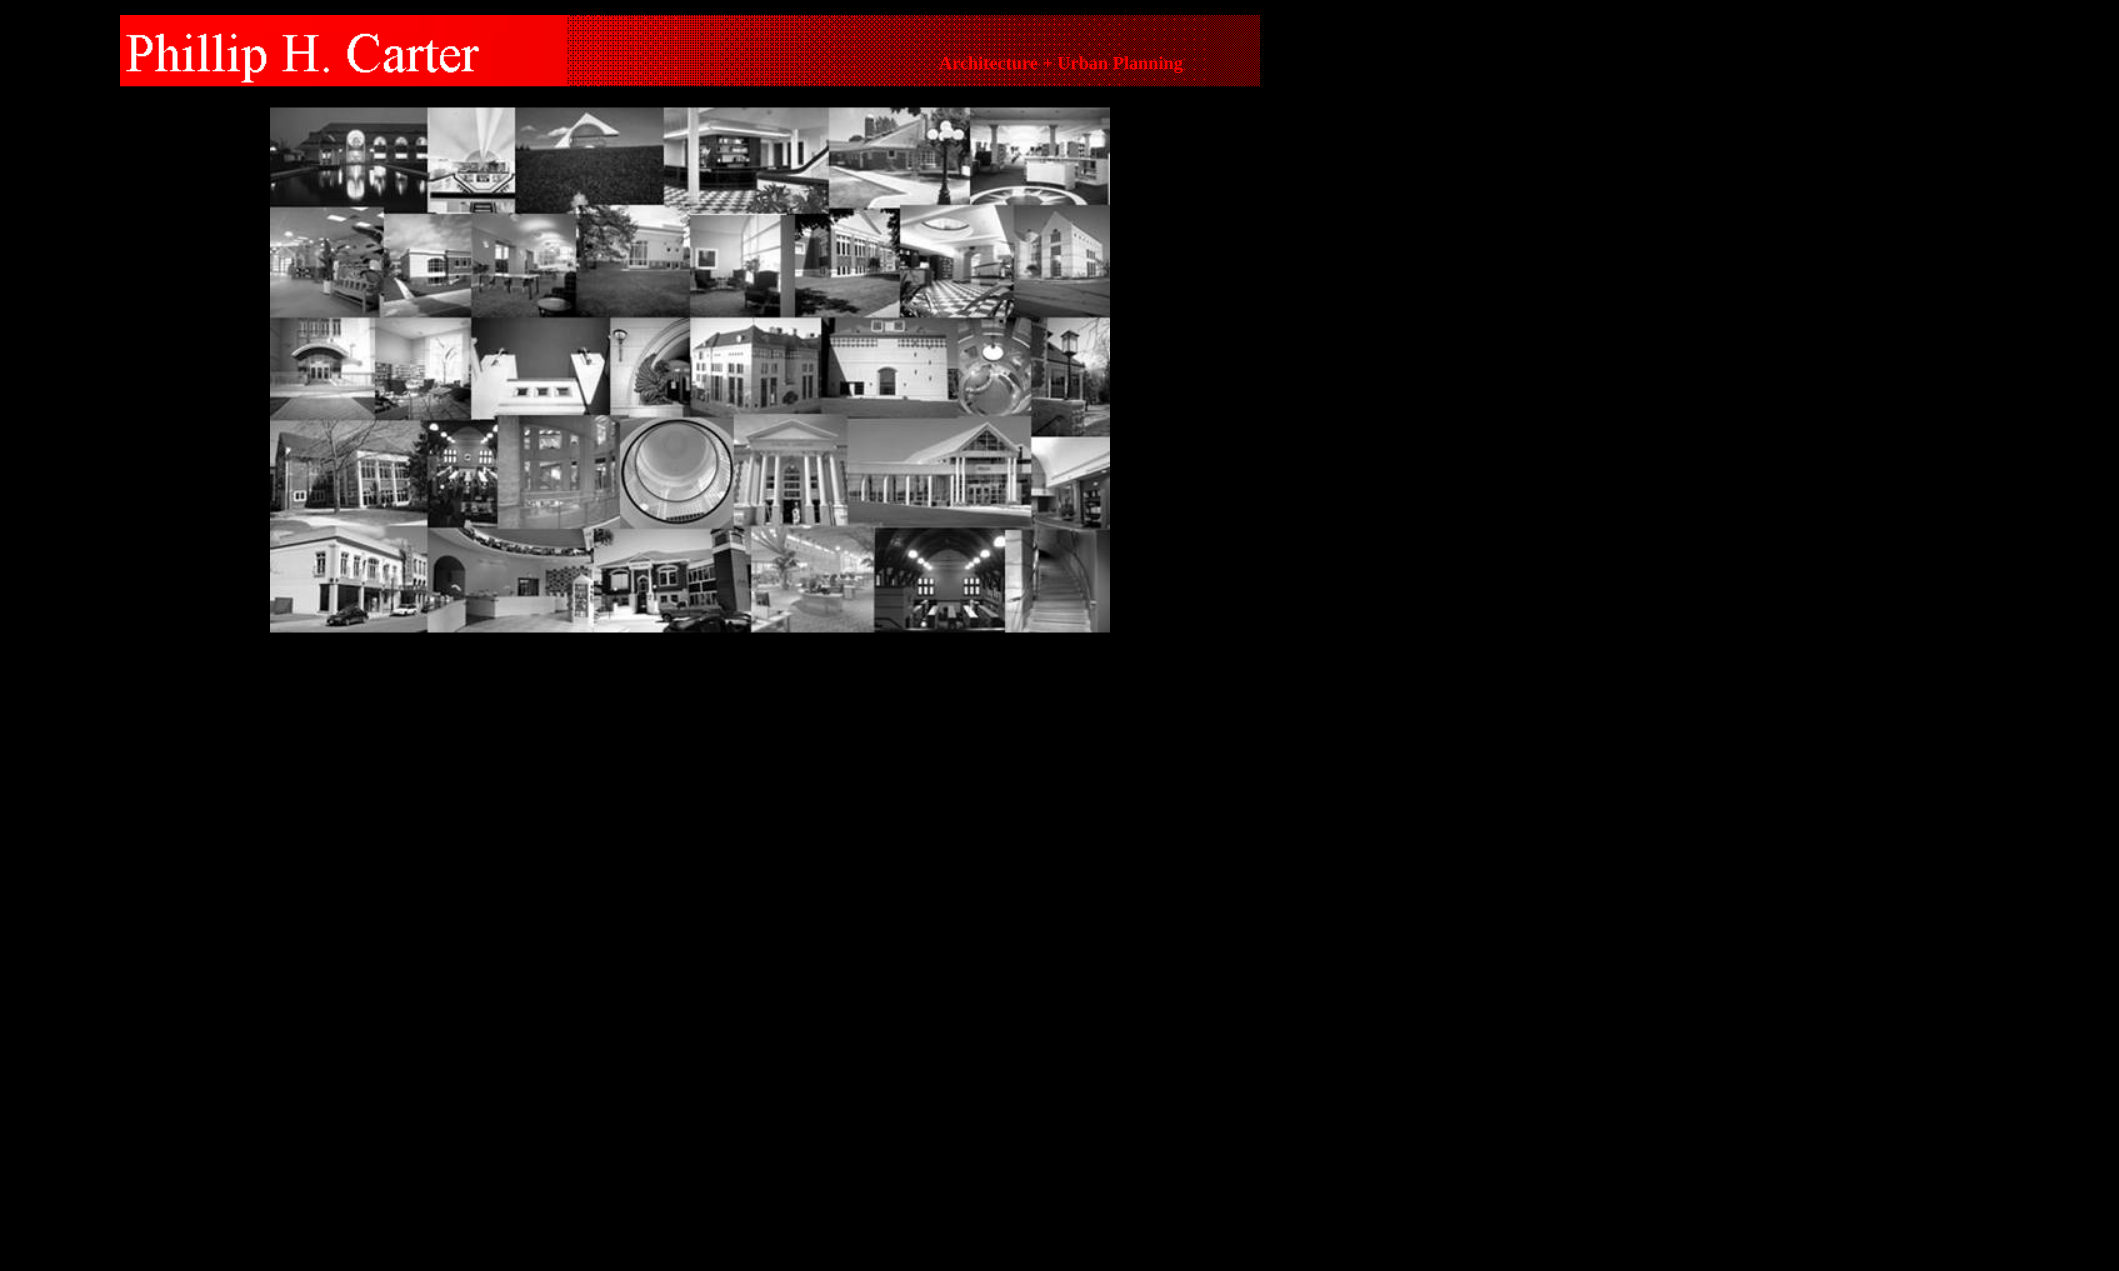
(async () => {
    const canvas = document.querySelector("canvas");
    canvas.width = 2119;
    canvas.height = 1271;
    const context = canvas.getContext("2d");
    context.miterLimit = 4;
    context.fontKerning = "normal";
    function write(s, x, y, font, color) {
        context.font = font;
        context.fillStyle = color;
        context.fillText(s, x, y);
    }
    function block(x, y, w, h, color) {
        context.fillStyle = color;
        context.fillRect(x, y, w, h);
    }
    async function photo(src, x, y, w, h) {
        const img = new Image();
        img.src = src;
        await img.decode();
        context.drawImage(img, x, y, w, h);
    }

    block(0, 0, 2119, 1271, "rgb(0, 0, 0)");
    await photo("media/1.png", 120, 15, 1140, 72);
    write("Architecture + Urban Planning", 939, 69, "bold 18.3px Liberation Serif", "rgb(255, 0, 0)");
    await photo("media/2.png", 270, 107, 840, 526);
})();
